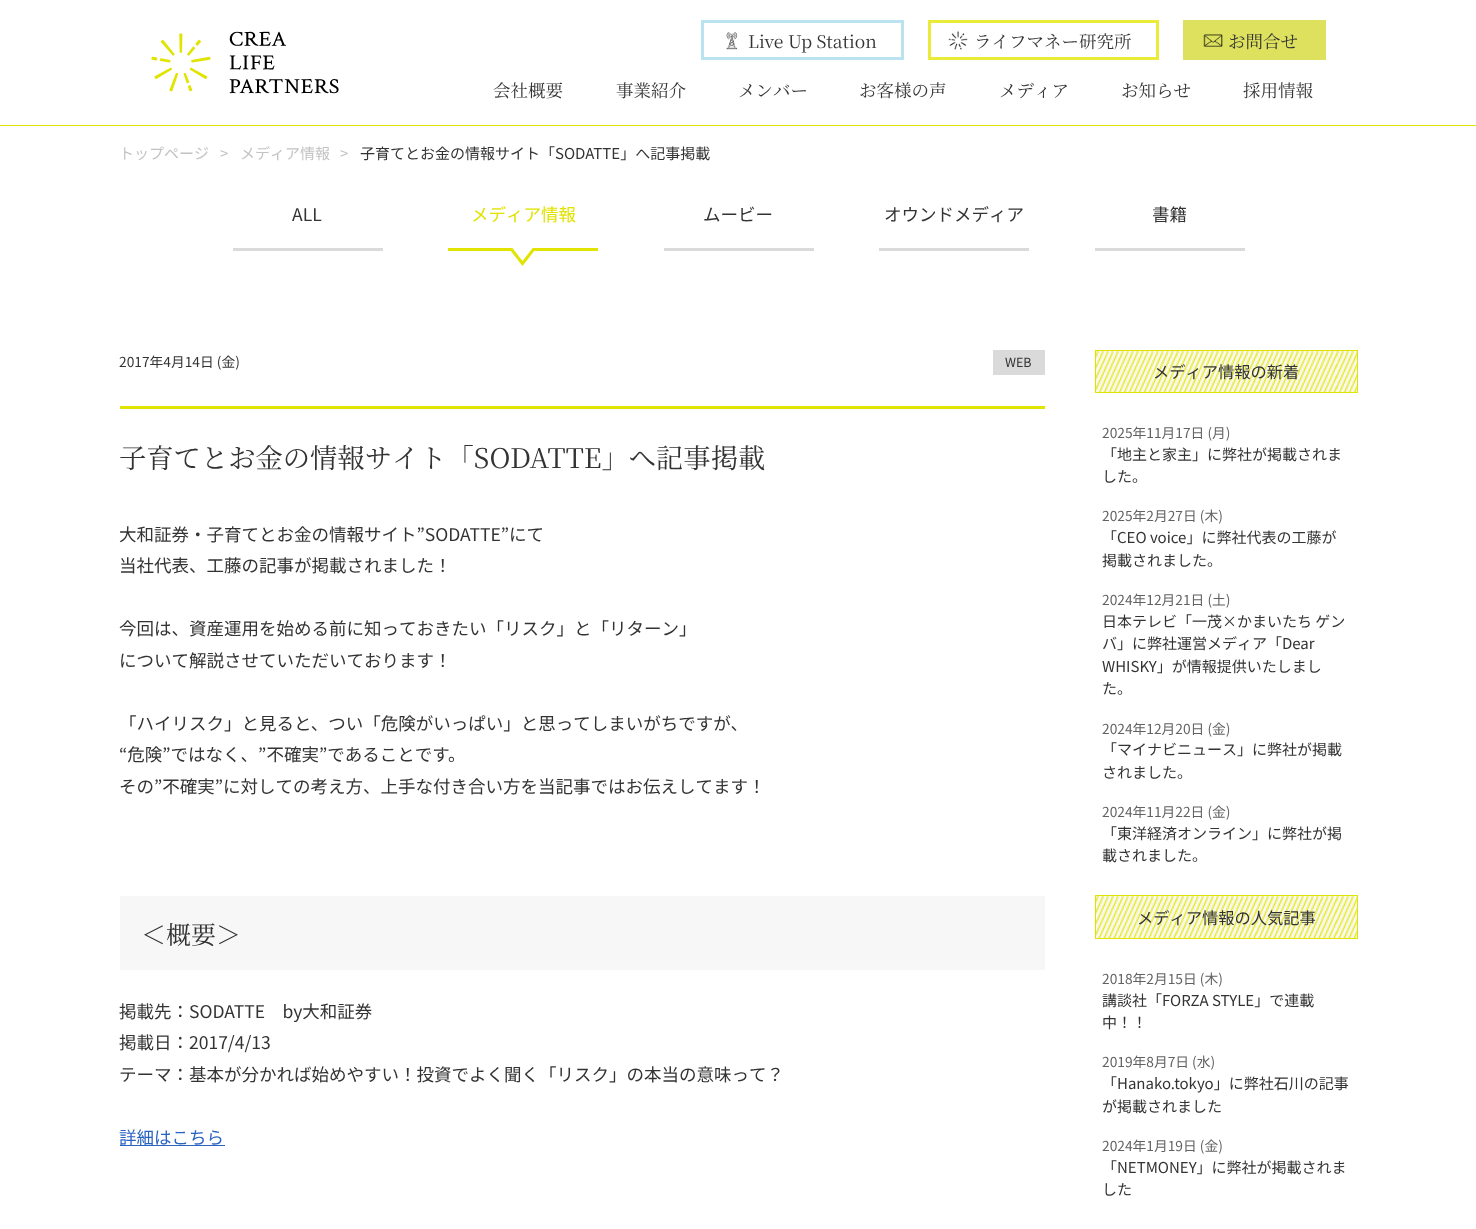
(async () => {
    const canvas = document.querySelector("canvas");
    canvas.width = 1476;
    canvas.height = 1229;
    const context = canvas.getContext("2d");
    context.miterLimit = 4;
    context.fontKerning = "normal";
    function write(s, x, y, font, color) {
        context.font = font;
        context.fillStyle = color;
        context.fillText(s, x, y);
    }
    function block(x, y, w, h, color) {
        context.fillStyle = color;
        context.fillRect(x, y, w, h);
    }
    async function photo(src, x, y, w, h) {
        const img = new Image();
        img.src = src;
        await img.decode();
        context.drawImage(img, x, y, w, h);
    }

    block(0, 0, 1476, 1229, "rgb(255, 255, 255)");
    block(0, 125, 1476, 1, "rgb(225, 227, 0)");
    await photo("media/1.png", 151, 31, 188, 63);
    context.strokeStyle = "rgb(186, 226, 239)";
    context.lineWidth = 3;
    context.strokeRect(702.5, 21.5, 200, 37);
    await photo("media/2.png", 726, 32, 12, 18);
    write("Live Up Station", 748, 48, "17.5px Noto Serif JP", "rgb(51, 51, 51)");
    context.strokeStyle = "rgb(234, 235, 56)";
    context.strokeRect(929.5, 21.5, 228, 37);
    await photo("media/3.png", 948, 31, 20, 19);
    write("ライフマネー研究所", 974, 48, "17.5px Noto Serif JP", "rgb(51, 51, 51)");
    block(1183, 20, 143, 40, "rgb(221, 225, 94)");
    await photo("media/4.png", 1203, 34, 20, 13);
    write("お問合せ", 1228, 48, "17.5px Noto Serif JP", "rgb(51, 51, 51)");
    write("会社概要", 493, 97, "17.5px Noto Serif JP", "rgb(51, 51, 51)");
    write("事業紹介", 616, 97, "17.5px Noto Serif JP", "rgb(51, 51, 51)");
    write("メンバー", 738, 97, "17.5px Noto Serif JP", "rgb(51, 51, 51)");
    write("お客様の声", 859, 97, "17.5px Noto Serif JP", "rgb(51, 51, 51)");
    write("メディア", 999, 97, "17.5px Noto Serif JP", "rgb(51, 51, 51)");
    write("お知らせ", 1121, 97, "17.5px Noto Serif JP", "rgb(51, 51, 51)");
    write("採用情報", 1243, 97, "17.5px Noto Serif JP", "rgb(51, 51, 51)");
    write("トップページ", 119, 159, "15px Noto Sans JP", "rgb(195, 195, 195)");
    write(">", 220, 159, "15px Noto Sans JP", "rgb(195, 195, 195)");
    write("メディア情報", 240, 159, "15px Noto Sans JP", "rgb(195, 195, 195)");
    write(">", 340, 159, "15px Noto Sans JP", "rgb(195, 195, 195)");
    write("子育てとお金の情報サイト「SODATTE」へ記事掲載", 360, 159, "15px Noto Sans JP", "rgb(51, 51, 51)");
    block(233, 248, 150, 3, "rgb(218, 218, 218)");
    write("ALL", 292, 221, "17.5px Noto Sans JP", "rgb(51, 51, 51)");
    block(448, 248, 150, 3, "rgb(225, 227, 0)");
    write("メディア情報", 471, 221, "17.5px Noto Sans JP", "rgb(225, 227, 0)");
    context.beginPath();
    context.moveTo(510, 250);
    context.lineTo(535, 250);
    context.lineTo(522.5, 266);
    context.closePath();
    context.fill();
    context.fillStyle = "rgb(255, 255, 255)";
    context.beginPath();
    context.moveTo(510, 245);
    context.lineTo(535, 245);
    context.lineTo(522.5, 261);
    context.closePath();
    context.fill();
    block(664, 248, 150, 3, "rgb(218, 218, 218)");
    write("ムービー", 703, 221, "17.5px Noto Sans JP", "rgb(51, 51, 51)");
    block(879, 248, 150, 3, "rgb(218, 218, 218)");
    write("オウンドメディア", 884, 221, "17.5px Noto Sans JP", "rgb(51, 51, 51)");
    block(1095, 248, 150, 3, "rgb(218, 218, 218)");
    write("書籍", 1152, 221, "17.5px Noto Sans JP", "rgb(51, 51, 51)");
    block(120, 406, 925, 3, "rgb(225, 227, 0)");
    write("2017年4月14日 (金)", 119, 367, "13.75px Noto Sans JP", "rgb(51, 51, 51)");
    block(993, 350, 52, 25, "rgb(218, 218, 218)");
    write("WEB", 1005, 367, "12.5px Noto Sans JP", "rgb(51, 51, 51)");
    write("子育てとお金の情報サイト「SODATTE」へ記事掲載", 119, 468, "27.3px Noto Serif JP", "rgb(51, 51, 51)");
    write("大和証券・子育てとお金の情報サイト”SODATTE”にて", 119, 541, "17.5px Noto Sans JP", "rgb(51, 51, 51)");
    write("当社代表、工藤の記事が掲載されました！", 119, 572, "17.5px Noto Sans JP", "rgb(51, 51, 51)");
    write("今回は、資産運用を始める前に知っておきたい「リスク」と「リターン」", 119, 635, "17.5px Noto Sans JP", "rgb(51, 51, 51)");
    write("について解説させていただいております！", 119, 667, "17.5px Noto Sans JP", "rgb(51, 51, 51)");
    write("「ハイリスク」と見ると、つい「危険がいっぱい」と思ってしまいがちですが、", 119, 730, "17.5px Noto Sans JP", "rgb(51, 51, 51)");
    write("“危険”ではなく、”不確実”であることです。", 119, 761, "17.5px Noto Sans JP", "rgb(51, 51, 51)");
    write("その”不確実”に対しての考え方、上手な付き合い方を当記事ではお伝えしてます！", 119, 793, "17.5px Noto Sans JP", "rgb(51, 51, 51)");
    block(120, 896, 925, 74, "rgb(247, 247, 247)");
    write("＜概要＞", 141, 944, "25px Noto Serif JP", "rgb(51, 51, 51)");
    write("掲載先：SODATTE　by大和証券", 119, 1018, "17.5px Noto Sans JP", "rgb(51, 51, 51)");
    write("掲載日：2017/4/13", 119, 1049, "17.5px Noto Sans JP", "rgb(51, 51, 51)");
    write("テーマ：基本が分かれば始めやすい！投資でよく聞く「リスク」の本当の意味って？", 119, 1081, "17.5px Noto Sans JP", "rgb(51, 51, 51)");
    block(120, 1145, 105, 1, "rgb(42, 100, 195)");
    write("詳細はこちら", 119, 1144, "17.5px Noto Sans JP", "rgb(42, 100, 195)");
    block(1096, 351, 261, 41, "rgb(247, 247, 247)");
    await photo("media/5.png", 1096, 351, 261, 41);
    context.strokeStyle = "rgb(225, 227, 0)";
    context.lineWidth = 1;
    context.strokeRect(1095.5, 350.5, 262, 42);
    write("メディア情報の新着", 1153, 378, "16.25px Noto Sans JP", "rgb(51, 51, 51)");
    write("2025年11月17日 (月)", 1102, 438, "13.75px Noto Sans JP", "rgb(98, 98, 98)");
    write("「地主と家主」に弊社が掲載されま", 1102, 460, "15px Noto Sans JP", "rgb(51, 51, 51)");
    write("した。", 1102, 482, "15px Noto Sans JP", "rgb(51, 51, 51)");
    write("2025年2月27日 (木)", 1102, 521, "13.75px Noto Sans JP", "rgb(98, 98, 98)");
    write("「CEO voice」に弊社代表の工藤が", 1102, 543, "15px Noto Sans JP", "rgb(51, 51, 51)");
    write("掲載されました。", 1102, 566, "15px Noto Sans JP", "rgb(51, 51, 51)");
    write("2024年12月21日 (土)", 1102, 605, "13.75px Noto Sans JP", "rgb(98, 98, 98)");
    write("日本テレビ「一茂×かまいたち ゲン", 1102, 627, "15px Noto Sans JP", "rgb(51, 51, 51)");
    write("バ」に弊社運営メディア「Dear", 1102, 649, "15px Noto Sans JP", "rgb(51, 51, 51)");
    write("WHISKY」が情報提供いたしまし", 1102, 672, "15px Noto Sans JP", "rgb(51, 51, 51)");
    write("た。", 1102, 694, "15px Noto Sans JP", "rgb(51, 51, 51)");
    write("2024年12月20日 (金)", 1102, 734, "13.75px Noto Sans JP", "rgb(98, 98, 98)");
    write("「マイナビニュース」に弊社が掲載", 1102, 755, "15px Noto Sans JP", "rgb(51, 51, 51)");
    write("されました。", 1102, 778, "15px Noto Sans JP", "rgb(51, 51, 51)");
    write("2024年11月22日 (金)", 1102, 817, "13.75px Noto Sans JP", "rgb(98, 98, 98)");
    write("「東洋経済オンライン」に弊社が掲", 1102, 839, "15px Noto Sans JP", "rgb(51, 51, 51)");
    write("載されました。", 1102, 861, "15px Noto Sans JP", "rgb(51, 51, 51)");
    block(1096, 896, 261, 42, "rgb(247, 247, 247)");
    await photo("media/6.png", 1096, 896, 261, 42);
    context.strokeRect(1095.5, 895.5, 262, 43);
    write("メディア情報の人気記事", 1137, 924, "16.25px Noto Sans JP", "rgb(51, 51, 51)");
    write("2018年2月15日 (木)", 1102, 984, "13.75px Noto Sans JP", "rgb(98, 98, 98)");
    write("講談社「FORZA STYLE」で連載", 1102, 1006, "15px Noto Sans JP", "rgb(51, 51, 51)");
    write("中！！", 1102, 1028, "15px Noto Sans JP", "rgb(51, 51, 51)");
    write("2019年8月7日 (水)", 1102, 1067, "13.75px Noto Sans JP", "rgb(98, 98, 98)");
    write("「Hanako.tokyo」に弊社石川の記事", 1102, 1089, "15px Noto Sans JP", "rgb(51, 51, 51)");
    write("が掲載されました", 1102, 1112, "15px Noto Sans JP", "rgb(51, 51, 51)");
    write("2024年1月19日 (金)", 1102, 1151, "13.75px Noto Sans JP", "rgb(98, 98, 98)");
    write("「NETMONEY」に弊社が掲載されま", 1102, 1173, "15px Noto Sans JP", "rgb(51, 51, 51)");
    write("した", 1102, 1195, "15px Noto Sans JP", "rgb(51, 51, 51)");
})();
